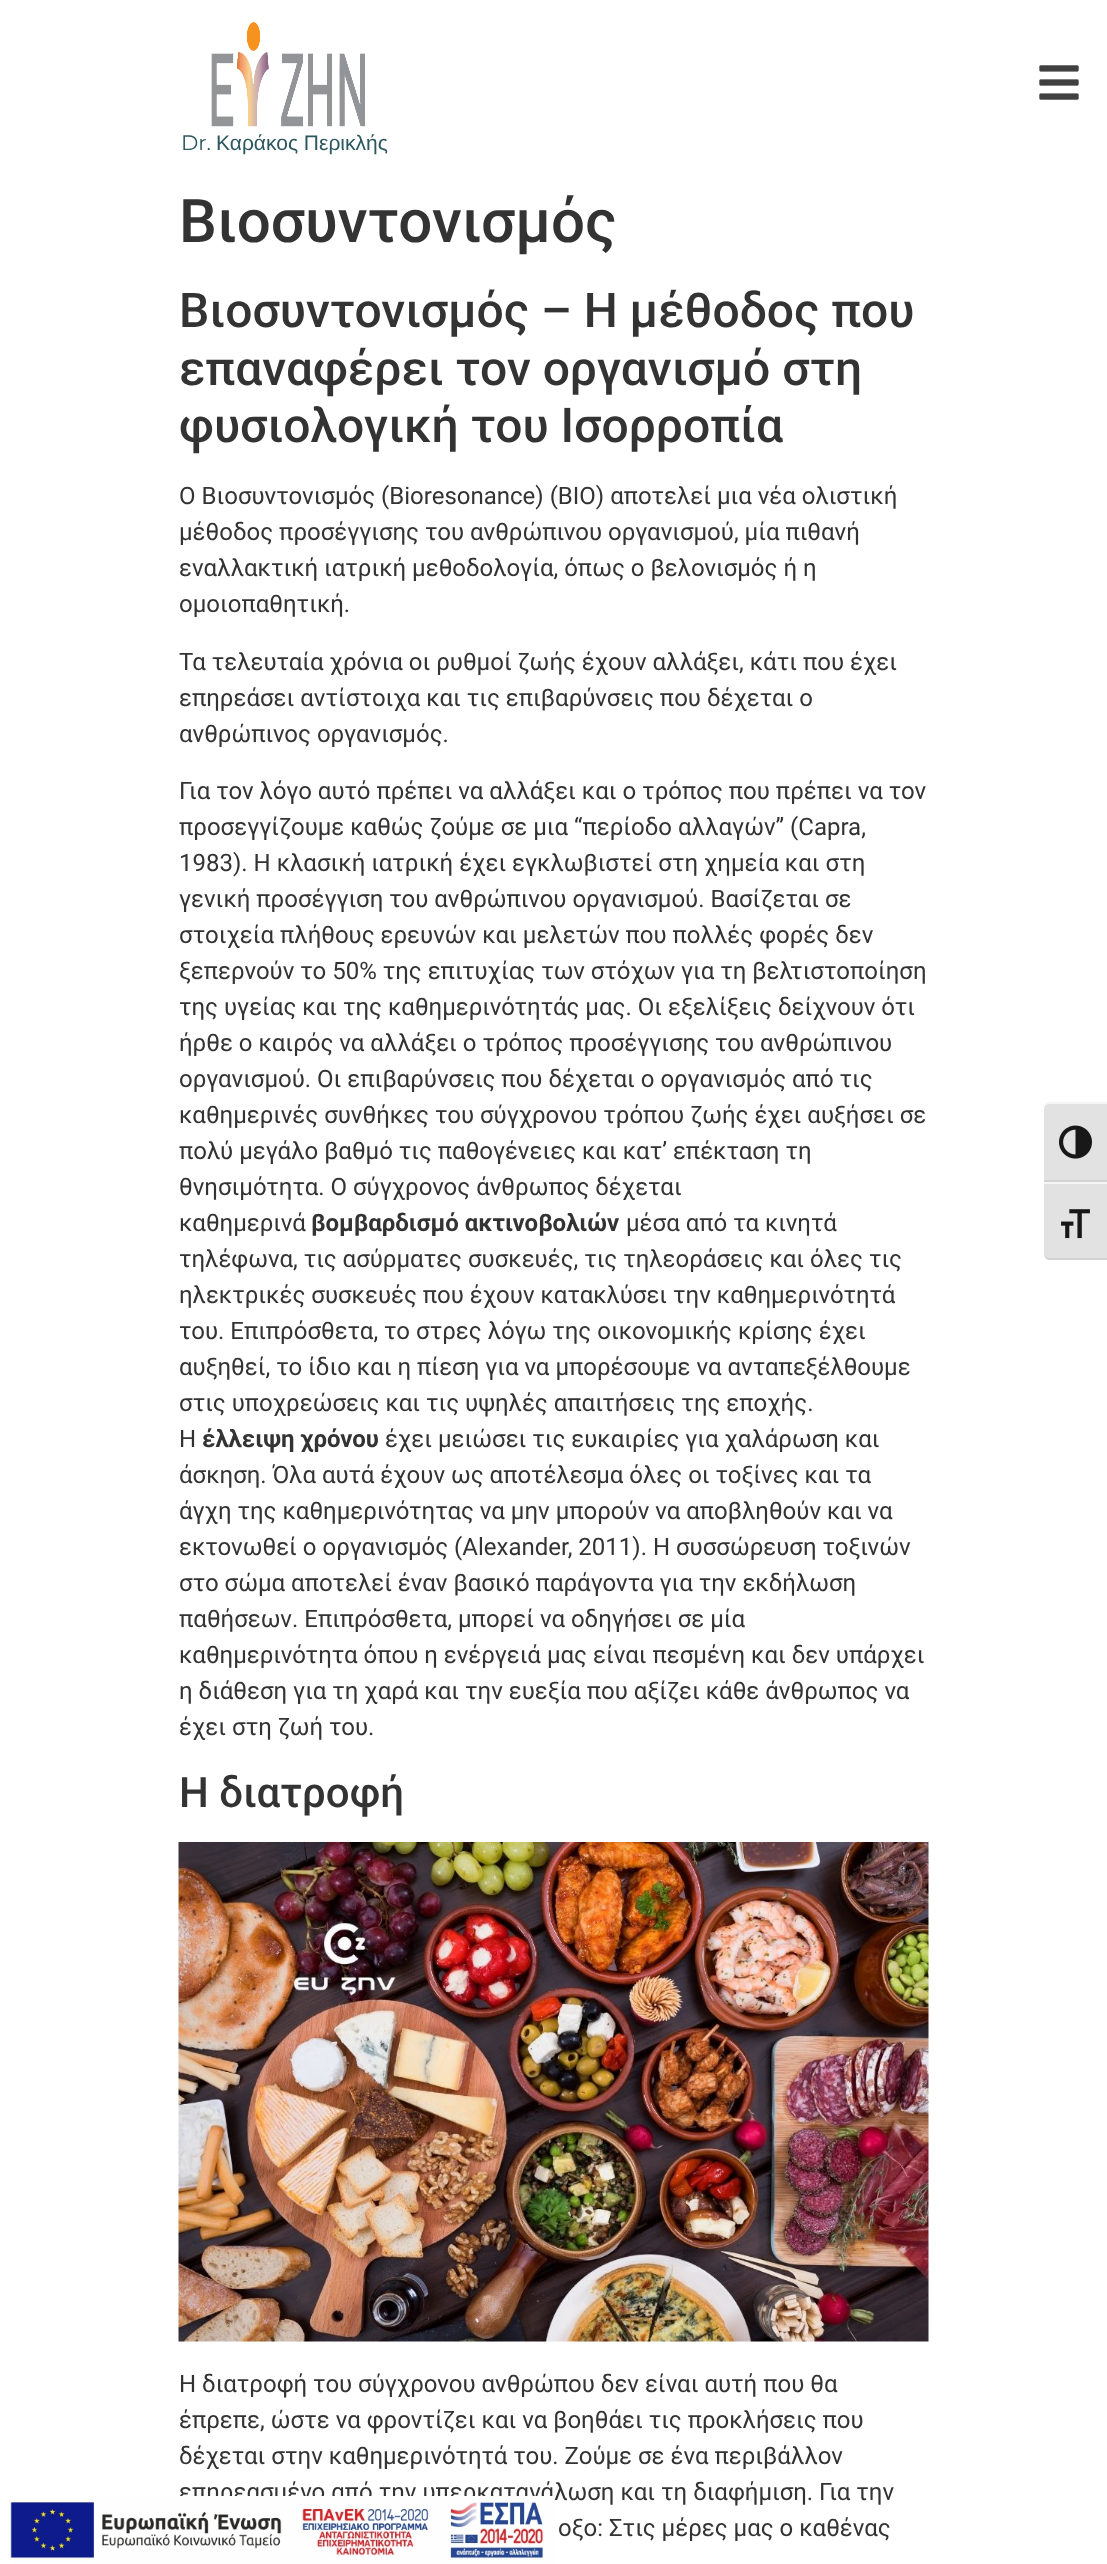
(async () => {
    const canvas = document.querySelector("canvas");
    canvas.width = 1107;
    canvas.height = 2564;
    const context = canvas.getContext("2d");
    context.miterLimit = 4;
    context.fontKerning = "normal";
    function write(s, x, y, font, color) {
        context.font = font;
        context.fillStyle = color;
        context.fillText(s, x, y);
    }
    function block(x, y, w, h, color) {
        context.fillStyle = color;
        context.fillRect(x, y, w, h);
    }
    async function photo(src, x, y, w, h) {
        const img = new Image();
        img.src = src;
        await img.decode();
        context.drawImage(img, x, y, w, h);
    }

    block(0, 0, 1107, 2564, "rgb(255, 255, 255)");
    await photo("media/1.png", 1039, 65, 40, 35);
    await photo("media/2.png", 211, 21, 154, 106);
    write("Dr.", 181, 150, "21px Montserrat", "rgb(44, 87, 94)");
    write("Καράκος Περικλής", 216, 150, "21px Liberation Sans", "rgb(44, 87, 94)");
    write("Βιοσυντονισμός", 179, 242, "500 60px Roboto", "rgb(51, 51, 51)");
    write("Βιοσυντονισμός – Η μέθοδος που", 179, 327, "500 48px Roboto", "rgb(51, 51, 51)");
    write("επαναφέρει τον οργανισμό στη", 179, 385, "500 48px Roboto", "rgb(51, 51, 51)");
    write("φυσιολογική του Ισορροπία", 179, 442, "500 48px Roboto", "rgb(51, 51, 51)");
    write("Ο Βιοσυντονισμός (Bioresonance) (ΒΙΟ) αποτελεί μια νέα ολιστική", 179, 504, "24px Roboto", "rgb(51, 51, 51)");
    write("μέθοδος προσέγγισης του ανθρώπινου οργανισμού, μία πιθανή", 179, 540, "24px Roboto", "rgb(51, 51, 51)");
    write("εναλλακτική ιατρική μεθοδολογία, όπως ο βελονισμός ή η", 179, 576, "24px Roboto", "rgb(51, 51, 51)");
    write("ομοιοπαθητική.", 179, 612, "24px Roboto", "rgb(51, 51, 51)");
    write("Τα τελευταία χρόνια οι ρυθμοί ζωής έχουν αλλάξει, κάτι που έχει", 179, 670, "24px Roboto", "rgb(51, 51, 51)");
    write("επηρεάσει αντίστοιχα και τις επιβαρύνσεις που δέχεται ο", 179, 706, "24px Roboto", "rgb(51, 51, 51)");
    write("ανθρώπινος οργανισμός.", 179, 742, "24px Roboto", "rgb(51, 51, 51)");
    write("Για τον λόγο αυτό πρέπει να αλλάξει και ο τρόπος που πρέπει να τον", 179, 799, "24px Roboto", "rgb(51, 51, 51)");
    write("προσεγγίζουμε καθώς ζούμε σε μια “περίοδο αλλαγών” (Capra,", 179, 835, "24px Roboto", "rgb(51, 51, 51)");
    write("1983). Η κλασική ιατρική έχει εγκλωβιστεί στη χημεία και στη", 179, 871, "24px Roboto", "rgb(51, 51, 51)");
    write("γενική προσέγγιση του ανθρώπινου οργανισμού. Βασίζεται σε", 179, 907, "24px Roboto", "rgb(51, 51, 51)");
    write("στοιχεία πλήθους ερευνών και μελετών που πολλές φορές δεν", 179, 943, "24px Roboto", "rgb(51, 51, 51)");
    write("ξεπερνούν το 50% της επιτυχίας των στόχων για τη βελτιστοποίηση", 179, 979, "24px Roboto", "rgb(51, 51, 51)");
    write("της υγείας και της καθημερινότητάς μας. Οι εξελίξεις δείχνουν ότι", 179, 1015, "24px Roboto", "rgb(51, 51, 51)");
    write("ήρθε ο καιρός να αλλάξει ο τρόπος προσέγγισης του ανθρώπινου", 179, 1051, "24px Roboto", "rgb(51, 51, 51)");
    write("οργανισμού. Οι επιβαρύνσεις που δέχεται ο οργανισμός από τις", 179, 1087, "24px Roboto", "rgb(51, 51, 51)");
    write("καθημερινές συνθήκες του σύγχρονου τρόπου ζωής έχει αυξήσει σε", 179, 1123, "24px Roboto", "rgb(51, 51, 51)");
    write("πολύ μεγάλο βαθμό τις παθογένειες και κατ’ επέκταση τη", 179, 1159, "24px Roboto", "rgb(51, 51, 51)");
    write("θνησιμότητα. Ο σύγχρονος άνθρωπος δέχεται", 179, 1195, "24px Roboto", "rgb(51, 51, 51)");
    write("καθημερινά", 179, 1231, "24px Roboto", "rgb(51, 51, 51)");
    write("βομβαρδισμό ακτινοβολιών", 311, 1231, "bold 24px Roboto", "rgb(51, 51, 51)");
    write("μέσα από τα κινητά", 626, 1231, "24px Roboto", "rgb(51, 51, 51)");
    write("τηλέφωνα, τις ασύρματες συσκευές, τις τηλεοράσεις και όλες τις", 179, 1267, "24px Roboto", "rgb(51, 51, 51)");
    write("ηλεκτρικές συσκευές που έχουν κατακλύσει την καθημερινότητά", 179, 1303, "24px Roboto", "rgb(51, 51, 51)");
    write("του. Επιπρόσθετα, το στρες λόγω της οικονομικής κρίσης έχει", 179, 1339, "24px Roboto", "rgb(51, 51, 51)");
    write("αυξηθεί, το ίδιο και η πίεση για να μπορέσουμε να ανταπεξέλθουμε", 179, 1375, "24px Roboto", "rgb(51, 51, 51)");
    write("στις υποχρεώσεις και τις υψηλές απαιτήσεις της εποχής.", 179, 1411, "24px Roboto", "rgb(51, 51, 51)");
    write("Η", 179, 1447, "24px Roboto", "rgb(51, 51, 51)");
    write("έλλειψη χρόνου", 202, 1447, "bold 24px Roboto", "rgb(51, 51, 51)");
    write("έχει μειώσει τις ευκαιρίες για χαλάρωση και", 385, 1447, "24px Roboto", "rgb(51, 51, 51)");
    write("άσκηση. Όλα αυτά έχουν ως αποτέλεσμα όλες οι τοξίνες και τα", 179, 1483, "24px Roboto", "rgb(51, 51, 51)");
    write("άγχη της καθημερινότητας να μην μπορούν να αποβληθούν και να", 179, 1519, "24px Roboto", "rgb(51, 51, 51)");
    write("εκτονωθεί ο οργανισμός (Alexander, 2011). Η συσσώρευση τοξινών", 179, 1555, "24px Roboto", "rgb(51, 51, 51)");
    write("στο σώμα αποτελεί έναν βασικό παράγοντα για την εκδήλωση", 179, 1591, "24px Roboto", "rgb(51, 51, 51)");
    write("παθήσεων. Επιπρόσθετα, μπορεί να οδηγήσει σε μία", 179, 1627, "24px Roboto", "rgb(51, 51, 51)");
    write("καθημερινότητα όπου η ενέργειά μας είναι πεσμένη και δεν υπάρχει", 179, 1663, "24px Roboto", "rgb(51, 51, 51)");
    write("η διάθεση για τη χαρά και την ευεξία που αξίζει κάθε άνθρωπος να", 179, 1699, "24px Roboto", "rgb(51, 51, 51)");
    write("έχει στη ζωή του.", 179, 1735, "24px Roboto", "rgb(51, 51, 51)");
    write("Η διατροφή", 179, 1807, "500 42px Roboto", "rgb(51, 51, 51)");
    await photo("media/3.png", 178, 1842, 751, 500);
    write("Η διατροφή του σύγχρονου ανθρώπου δεν είναι αυτή που θα", 179, 2392, "24px Roboto", "rgb(51, 51, 51)");
    write("έπρεπε, ώστε να φροντίζει και να βοηθάει τις προκλήσεις που", 179, 2428, "24px Roboto", "rgb(51, 51, 51)");
    write("δέχεται στην καθημερινότητά του. Ζούμε σε ένα περιβάλλον", 179, 2464, "24px Roboto", "rgb(51, 51, 51)");
    write("επηρεασμένο από την υπερκατανάλωση και τη διαφήμιση. Για την", 179, 2500, "24px Roboto", "rgb(51, 51, 51)");
    write("οξο: Στις μέρες μας ο καθένας", 558, 2536, "24px Roboto", "rgb(51, 51, 51)");
    context.fillStyle = "rgb(226, 226, 226)";
    context.beginPath();
    context.roundRect(1044, 1103, 63, 79, [6, 0, 0, 0]);
    context.fill();
    context.fillStyle = "rgb(245, 245, 245)";
    context.beginPath();
    context.moveTo(1050, 1104);
    context.bezierCurveTo(1047, 1104, 1044, 1106, 1044, 1108);
    context.bezierCurveTo(1044, 1106, 1046, 1103, 1048, 1102);
    context.lineTo(1107, 1102);
    context.lineTo(1107, 1104);
    context.closePath();
    context.fill();
    block(1044, 1180, 63, 2, "rgb(210, 210, 210)");
    await photo("media/4.png", 1059, 1125, 33, 34);
    context.fillStyle = "rgb(226, 226, 226)";
    context.beginPath();
    context.roundRect(1044, 1182, 63, 78, [0, 0, 0, 6]);
    context.fill();
    block(1044, 1182, 63, 2, "rgb(245, 245, 245)");
    context.fillStyle = "rgb(210, 210, 210)";
    context.beginPath();
    context.moveTo(1107, 1260);
    context.lineTo(1107, 1258);
    context.lineTo(1050, 1258);
    context.bezierCurveTo(1047, 1258, 1044, 1256, 1044, 1254);
    context.bezierCurveTo(1044, 1257, 1047, 1260, 1050, 1260);
    context.closePath();
    context.fill();
    await photo("media/5.png", 1061, 1209, 29, 30);
    await photo("media/6.png", 9, 2496, 545, 68);
})();
